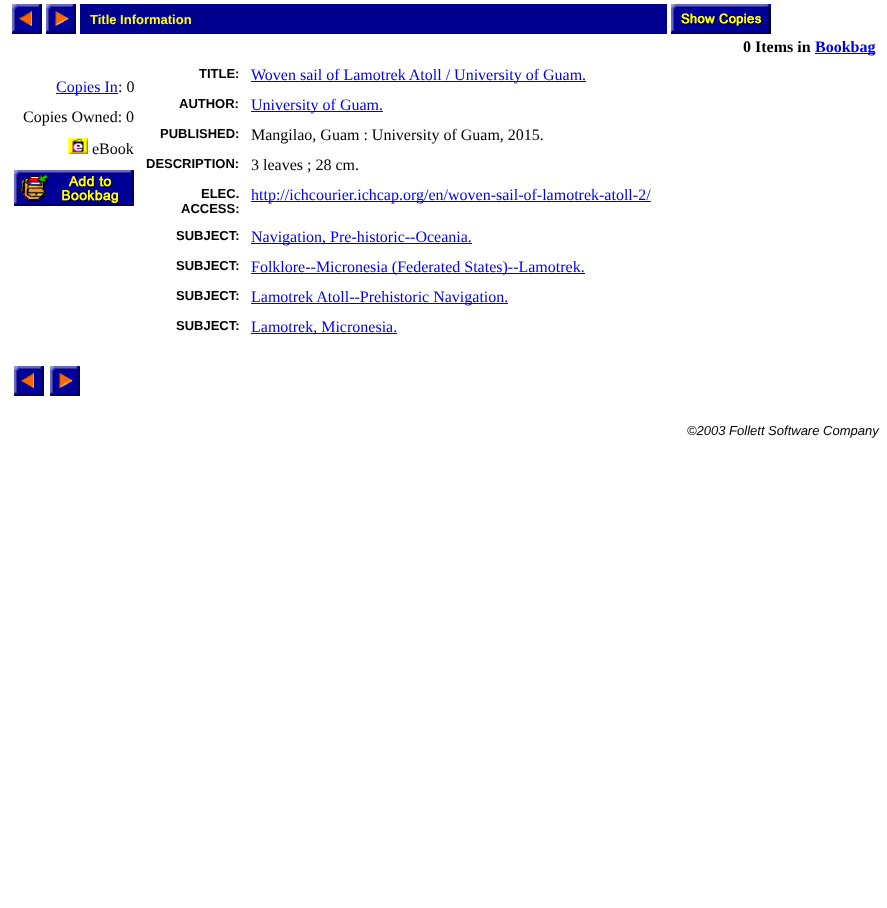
(async () => {
    const canvas = document.querySelector("canvas");
    canvas.width = 887;
    canvas.height = 908;
    const context = canvas.getContext("2d");
    context.miterLimit = 4;
    context.fontKerning = "normal";
    function write(s, x, y, font, color) {
        context.font = font;
        context.fillStyle = color;
        context.fillText(s, x, y);
    }
    function block(x, y, w, h, color) {
        context.fillStyle = color;
        context.fillRect(x, y, w, h);
    }
    async function photo(src, x, y, w, h) {
        const img = new Image();
        img.src = src;
        await img.decode();
        context.drawImage(img, x, y, w, h);
    }

    block(0, 0, 887, 908, "rgb(255, 255, 255)");
    await photo("media/1.png", 12, 4, 30, 30);
    await photo("media/2.png", 46, 4, 30, 30);
    block(80, 4, 587, 30, "rgb(0, 0, 142)");
    write("Title Information", 90, 24, "bold 13px Liberation Sans", "rgb(255, 255, 0)");
    await photo("media/3.png", 671, 4, 100, 30);
    write("0 Items in", 743, 52, "bold 16px Liberation Serif", "rgb(0, 0, 0)");
    block(815, 53, 60, 1, "rgb(0, 0, 238)");
    write("Bookbag", 815, 52, "bold 16px Liberation Serif", "rgb(0, 0, 238)");
    block(56, 93, 62, 1, "rgb(0, 0, 238)");
    write("Copies In", 56, 92, "16px Liberation Serif", "rgb(0, 0, 238)");
    write(": 0", 118, 92, "16px Liberation Serif", "rgb(0, 0, 0)");
    write("Copies Owned: 0", 23, 122, "16px Liberation Serif", "rgb(0, 0, 0)");
    await photo("media/4.png", 68, 138, 20, 16);
    write("eBook", 92, 154, "16px Liberation Serif", "rgb(0, 0, 0)");
    await photo("media/5.png", 14, 170, 120, 36);
    write("TITLE:", 199, 78, "bold 13px Liberation Sans", "rgb(0, 0, 0)");
    block(251, 81, 335, 1, "rgb(0, 0, 238)");
    write("Woven sail of Lamotrek Atoll / University of Guam.", 251, 80, "16px Liberation Serif", "rgb(0, 0, 238)");
    write("AUTHOR:", 179, 108, "bold 13px Liberation Sans", "rgb(0, 0, 0)");
    block(251, 111, 132, 1, "rgb(0, 0, 238)");
    write("University of Guam.", 251, 110, "16px Liberation Serif", "rgb(0, 0, 238)");
    write("PUBLISHED:", 160, 138, "bold 13px Liberation Sans", "rgb(0, 0, 0)");
    write("Mangilao, Guam : University of Guam, 2015.", 251, 140, "16px Liberation Serif", "rgb(0, 0, 0)");
    write("DESCRIPTION:", 146, 168, "bold 13px Liberation Sans", "rgb(0, 0, 0)");
    write("3 leaves ; 28 cm.", 251, 170, "16px Liberation Serif", "rgb(0, 0, 0)");
    write("ELEC.", 201, 198, "bold 13px Liberation Sans", "rgb(0, 0, 0)");
    write("ACCESS:", 181, 213, "bold 13px Liberation Sans", "rgb(0, 0, 0)");
    block(251, 201, 400, 1, "rgb(0, 0, 238)");
    write("http://ichcourier.ichcap.org/en/woven-sail-of-lamotrek-atoll-2/", 251, 200, "16px Liberation Serif", "rgb(0, 0, 238)");
    write("SUBJECT:", 176, 240, "bold 13px Liberation Sans", "rgb(0, 0, 0)");
    block(251, 243, 221, 1, "rgb(0, 0, 238)");
    write("Navigation, Pre-historic--Oceania.", 251, 242, "16px Liberation Serif", "rgb(0, 0, 238)");
    write("SUBJECT:", 176, 270, "bold 13px Liberation Sans", "rgb(0, 0, 0)");
    block(251, 273, 334, 1, "rgb(0, 0, 238)");
    write("Folklore--Micronesia (Federated States)--Lamotrek.", 251, 272, "16px Liberation Serif", "rgb(0, 0, 238)");
    write("SUBJECT:", 176, 300, "bold 13px Liberation Sans", "rgb(0, 0, 0)");
    block(251, 303, 257, 1, "rgb(0, 0, 238)");
    write("Lamotrek Atoll--Prehistoric Navigation.", 251, 302, "16px Liberation Serif", "rgb(0, 0, 238)");
    write("SUBJECT:", 176, 330, "bold 13px Liberation Sans", "rgb(0, 0, 0)");
    block(251, 333, 146, 1, "rgb(0, 0, 238)");
    write("Lamotrek, Micronesia.", 251, 332, "16px Liberation Serif", "rgb(0, 0, 238)");
    await photo("media/1.png", 14, 366, 30, 30);
    await photo("media/2.png", 50, 366, 30, 30);
    write("©2003 Follett Software Company", 687, 435, "italic 13px Liberation Sans", "rgb(0, 0, 0)");
})();
